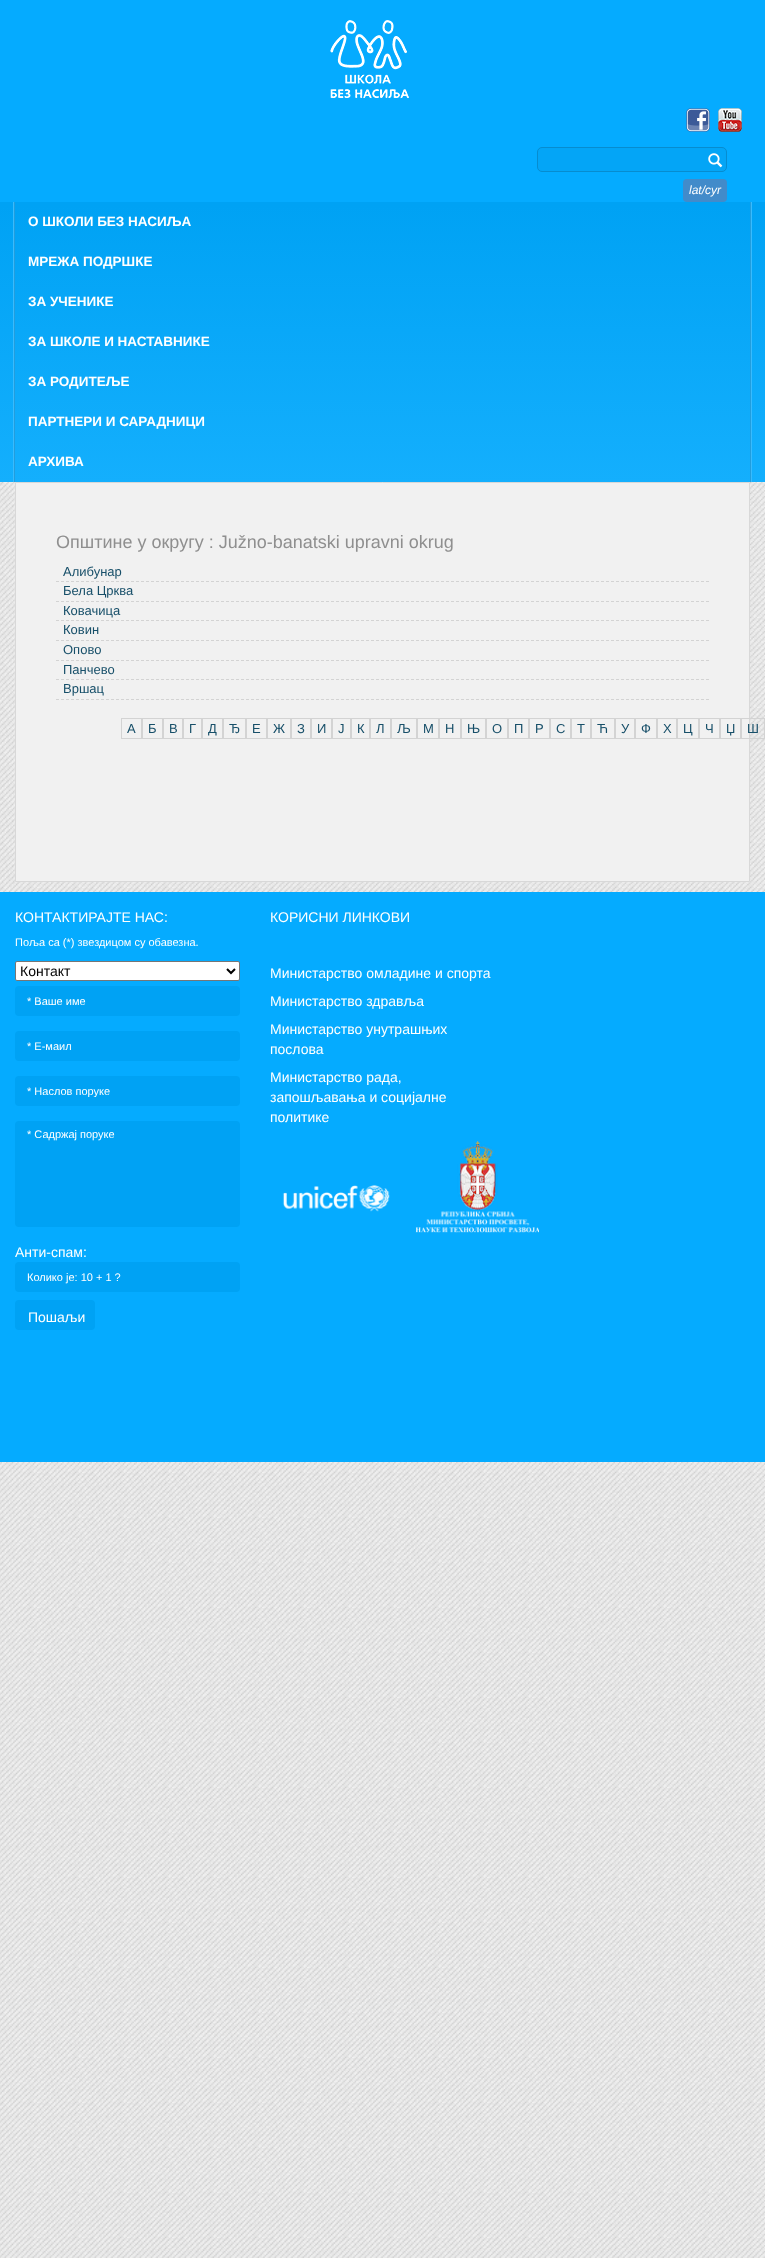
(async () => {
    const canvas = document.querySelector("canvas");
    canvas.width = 765;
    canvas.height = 2258;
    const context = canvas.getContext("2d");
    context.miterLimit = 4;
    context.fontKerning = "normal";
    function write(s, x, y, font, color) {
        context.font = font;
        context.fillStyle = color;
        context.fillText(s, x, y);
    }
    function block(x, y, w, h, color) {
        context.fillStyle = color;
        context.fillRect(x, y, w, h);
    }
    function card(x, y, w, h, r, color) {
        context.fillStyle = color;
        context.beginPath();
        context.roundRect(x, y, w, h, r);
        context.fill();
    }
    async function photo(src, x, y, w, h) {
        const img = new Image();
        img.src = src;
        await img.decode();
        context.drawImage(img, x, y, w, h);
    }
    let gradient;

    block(0, 0, 765, 2258, "rgb(255, 255, 255)");
    await photo("media/1.png", 0, 482, 765, 1776);
    block(0, 0, 765, 202, "rgb(5, 171, 255)");
    await photo("media/2.png", 330, 20, 79, 79);
    await photo("media/3.png", 686, 108, 24, 24);
    await photo("media/4.png", 718, 108, 24, 24);
    context.fillStyle = "rgb(4, 165, 246)";
    context.beginPath();
    context.roundRect(537.5, 147.5, 189, 24, 4.5);
    context.fill();
    context.strokeStyle = "rgb(7, 140, 207)";
    context.stroke();
    await photo("media/5.png", 708, 153, 15, 15);
    card(683, 179, 44, 23, 4, "rgb(66, 139, 202)");
    write("lat/cyr", 689, 194, "italic 12px Liberation Sans", "rgb(255, 255, 255)");
    gradient = context.createLinearGradient(383, 202, 383, 482);
    gradient.addColorStop(0.01, "rgb(0, 162, 244)");
    gradient.addColorStop(1, "rgb(20, 175, 253)");
    context.fillStyle = gradient;
    context.fillRect(0, 202, 765, 280);
    block(751, 202, 1, 280, "rgb(57, 187, 253)");
    block(750, 202, 1, 280, "rgb(34, 157, 221)");
    block(13, 202, 1, 280, "rgb(57, 187, 253)");
    block(14, 202, 1, 280, "rgb(34, 157, 221)");
    write("О ШКОЛИ БЕЗ НАСИЉА", 28, 226, "bold 13.5px Liberation Sans", "rgb(255, 255, 255)");
    write("МРЕЖА ПОДРШКЕ", 28, 266, "bold 13.5px Liberation Sans", "rgb(255, 255, 255)");
    write("ЗА УЧЕНИКЕ", 28, 306, "bold 13.5px Liberation Sans", "rgb(255, 255, 255)");
    write("ЗА ШКОЛЕ И НАСТАВНИКЕ", 28, 346, "bold 13.5px Liberation Sans", "rgb(255, 255, 255)");
    write("ЗА РОДИТЕЉЕ", 28, 386, "bold 13.5px Liberation Sans", "rgb(255, 255, 255)");
    write("ПАРТНЕРИ И САРАДНИЦИ", 28, 426, "bold 13.5px Liberation Sans", "rgb(255, 255, 255)");
    write("АРХИВА", 28, 466, "bold 13.5px Liberation Sans", "rgb(255, 255, 255)");
    context.fillStyle = "rgb(241, 241, 241)";
    context.beginPath();
    context.rect(15.5, 482.5, 734, 399);
    context.fill();
    context.strokeStyle = "rgb(216, 216, 216)";
    context.stroke();
    write("Општине у округу : Južno-banatski upravni okrug", 56, 548, "18px Liberation Sans", "rgb(143, 143, 143)");
    context.beginPath();
    context.moveTo(56, 581.5);
    context.lineTo(709, 581.5);
    context.strokeStyle = "rgb(211, 211, 211)";
    context.setLineDash([3, 2]);
    context.stroke();
    write("Алибунар", 63, 576, "13px Liberation Sans", "rgb(23, 79, 105)");
    context.beginPath();
    context.moveTo(56, 601.5);
    context.lineTo(709, 601.5);
    context.stroke();
    write("Бела Црква", 63, 595, "13px Liberation Sans", "rgb(23, 79, 105)");
    context.beginPath();
    context.moveTo(56, 620.5);
    context.lineTo(709, 620.5);
    context.stroke();
    write("Ковачица", 63, 615, "13px Liberation Sans", "rgb(23, 79, 105)");
    context.beginPath();
    context.moveTo(56, 640.5);
    context.lineTo(709, 640.5);
    context.stroke();
    write("Ковин", 63, 634, "13px Liberation Sans", "rgb(23, 79, 105)");
    context.beginPath();
    context.moveTo(56, 660.5);
    context.lineTo(709, 660.5);
    context.stroke();
    write("Опово", 63, 654, "13px Liberation Sans", "rgb(23, 79, 105)");
    context.beginPath();
    context.moveTo(56, 679.5);
    context.lineTo(709, 679.5);
    context.stroke();
    write("Панчево", 63, 674, "13px Liberation Sans", "rgb(23, 79, 105)");
    context.beginPath();
    context.moveTo(56, 699.5);
    context.lineTo(709, 699.5);
    context.stroke();
    write("Вршац", 63, 693, "13px Liberation Sans", "rgb(23, 79, 105)");
    context.setLineDash([]);
    context.strokeRect(121.5, 718.5, 20, 20);
    write("А", 127, 733, "13px Liberation Sans", "rgb(23, 79, 105)");
    context.strokeRect(142.5, 718.5, 20, 20);
    write("Б", 148, 733, "13px Liberation Sans", "rgb(23, 79, 105)");
    context.strokeRect(163.5, 718.5, 19, 20);
    write("В", 169, 733, "13px Liberation Sans", "rgb(23, 79, 105)");
    context.strokeRect(183.5, 718.5, 18, 20);
    write("Г", 189, 733, "13px Liberation Sans", "rgb(23, 79, 105)");
    context.strokeRect(202.5, 718.5, 20, 20);
    write("Д", 208, 733, "13px Liberation Sans", "rgb(23, 79, 105)");
    context.strokeRect(223.5, 718.5, 22, 20);
    write("Ђ", 229, 733, "13px Liberation Sans", "rgb(23, 79, 105)");
    context.strokeRect(246.5, 718.5, 20, 20);
    write("Е", 252, 733, "13px Liberation Sans", "rgb(23, 79, 105)");
    context.strokeRect(267.5, 718.5, 23, 20);
    write("Ж", 273, 733, "13px Liberation Sans", "rgb(23, 79, 105)");
    context.strokeRect(291.5, 718.5, 19, 20);
    write("З", 297, 733, "13px Liberation Sans", "rgb(23, 79, 105)");
    context.strokeRect(311.5, 718.5, 20, 20);
    write("И", 317, 733, "13px Liberation Sans", "rgb(23, 79, 105)");
    context.strokeRect(332.5, 718.5, 18, 20);
    write("Ј", 338, 733, "13px Liberation Sans", "rgb(23, 79, 105)");
    context.strokeRect(351.5, 718.5, 18, 20);
    write("К", 357, 733, "13px Liberation Sans", "rgb(23, 79, 105)");
    context.strokeRect(370.5, 718.5, 20, 20);
    write("Л", 376, 733, "13px Liberation Sans", "rgb(23, 79, 105)");
    context.strokeRect(391.5, 718.5, 25, 20);
    write("Љ", 397, 733, "13px Liberation Sans", "rgb(23, 79, 105)");
    context.strokeRect(417.5, 718.5, 21, 20);
    write("М", 423, 733, "13px Liberation Sans", "rgb(23, 79, 105)");
    context.strokeRect(439.5, 718.5, 21, 20);
    write("Н", 445, 733, "13px Liberation Sans", "rgb(23, 79, 105)");
    context.strokeRect(461.5, 718.5, 24, 20);
    write("Њ", 467, 733, "13px Liberation Sans", "rgb(23, 79, 105)");
    context.strokeRect(486.5, 718.5, 21, 20);
    write("О", 492, 733, "13px Liberation Sans", "rgb(23, 79, 105)");
    context.strokeRect(508.5, 718.5, 20, 20);
    write("П", 514, 733, "13px Liberation Sans", "rgb(23, 79, 105)");
    context.strokeRect(529.5, 718.5, 20, 20);
    write("Р", 535, 733, "13px Liberation Sans", "rgb(23, 79, 105)");
    context.strokeRect(550.5, 718.5, 20, 20);
    write("С", 556, 733, "13px Liberation Sans", "rgb(23, 79, 105)");
    context.strokeRect(571.5, 718.5, 19, 20);
    write("Т", 577, 733, "13px Liberation Sans", "rgb(23, 79, 105)");
    context.strokeRect(591.5, 718.5, 23, 20);
    write("Ћ", 597, 733, "13px Liberation Sans", "rgb(23, 79, 105)");
    context.strokeRect(615.5, 718.5, 19, 20);
    write("У", 621, 733, "13px Liberation Sans", "rgb(23, 79, 105)");
    context.strokeRect(635.5, 718.5, 21, 20);
    write("Ф", 641, 733, "13px Liberation Sans", "rgb(23, 79, 105)");
    context.strokeRect(657.5, 718.5, 19, 20);
    write("Х", 663, 733, "13px Liberation Sans", "rgb(23, 79, 105)");
    context.strokeRect(677.5, 718.5, 21, 20);
    write("Ц", 683, 733, "13px Liberation Sans", "rgb(23, 79, 105)");
    context.strokeRect(699.5, 718.5, 20, 20);
    write("Ч", 705, 733, "13px Liberation Sans", "rgb(23, 79, 105)");
    context.strokeRect(720.5, 718.5, 20, 20);
    write("Џ", 726, 733, "13px Liberation Sans", "rgb(23, 79, 105)");
    context.strokeRect(741.5, 718.5, 23, 20);
    write("Ш", 747, 733, "13px Liberation Sans", "rgb(23, 79, 105)");
    block(0, 892, 765, 570, "rgb(5, 171, 255)");
    write("КОНТАКТИРАЈТЕ НАС:", 15, 922, "14px Liberation Sans", "rgb(255, 255, 255)");
    write("Поља са (*) звездицом су обавезна.", 15, 946, "11px Liberation Sans", "rgb(255, 255, 255)");
    context.beginPath();
    context.roundRect(15.5, 961.5, 224, 19, 1.5);
    context.fill();
    context.strokeStyle = "rgb(118, 118, 118)";
    context.stroke();
    context.beginPath();
    context.moveTo(227, 969);
    context.lineTo(231, 973);
    context.lineTo(235, 969);
    context.strokeStyle = "rgb(0, 0, 0)";
    context.lineWidth = 2;
    context.stroke();
    write("Контакт", 20, 976, "14px Liberation Sans", "rgb(0, 0, 0)");
    card(15, 986, 225, 30, 4, "rgb(0, 162, 244)");
    write("* Ваше име", 27, 1005, "11px Liberation Sans", "rgb(255, 255, 255)");
    card(15, 1031, 225, 30, 4, "rgb(0, 162, 244)");
    write("* Е-маил", 27, 1050, "11px Liberation Sans", "rgb(255, 255, 255)");
    card(15, 1076, 225, 30, 4, "rgb(0, 162, 244)");
    context.save();
    context.beginPath();
    context.rect(27, 1085, 201, 12);
    context.clip();
    write("* Наслов поруке", 27, 1095, "11px Liberation Sans", "rgb(255, 255, 255)");
    context.restore();
    card(15, 1121, 225, 106, 4, "rgb(0, 162, 244)");
    write("* Садржај поруке", 27, 1138, "11px Liberation Sans", "rgb(255, 255, 255)");
    write("Анти-спам:", 15, 1257, "14px Liberation Sans", "rgb(255, 255, 255)");
    card(15, 1262, 225, 30, 4, "rgb(0, 162, 244)");
    write("Колико је: 10 + 1 ?", 27, 1281, "11px Liberation Sans", "rgb(255, 255, 255)");
    card(15, 1300, 80, 30, 4, "rgb(0, 162, 244)");
    write("Пошаљи", 28, 1322, "14px Liberation Sans", "rgb(255, 255, 255)");
    write("КОРИСНИ ЛИНКОВИ", 270, 922, "14px Liberation Sans", "rgb(255, 255, 255)");
    write("Министарство омладине и спорта", 270, 978, "14px Liberation Sans", "rgb(255, 255, 255)");
    write("Министарство здравља", 270, 1006, "14px Liberation Sans", "rgb(255, 255, 255)");
    write("Министарство унутрашњих", 270, 1034, "14px Liberation Sans", "rgb(255, 255, 255)");
    write("послова", 270, 1054, "14px Liberation Sans", "rgb(255, 255, 255)");
    write("Министарство рада,", 270, 1082, "14px Liberation Sans", "rgb(255, 255, 255)");
    write("запошљавања и социјалне", 270, 1102, "14px Liberation Sans", "rgb(255, 255, 255)");
    write("политике", 270, 1122, "14px Liberation Sans", "rgb(255, 255, 255)");
    await photo("media/6.png", 282, 1185, 108, 27);
    await photo("media/7.png", 415, 1141, 124, 92);
})();
